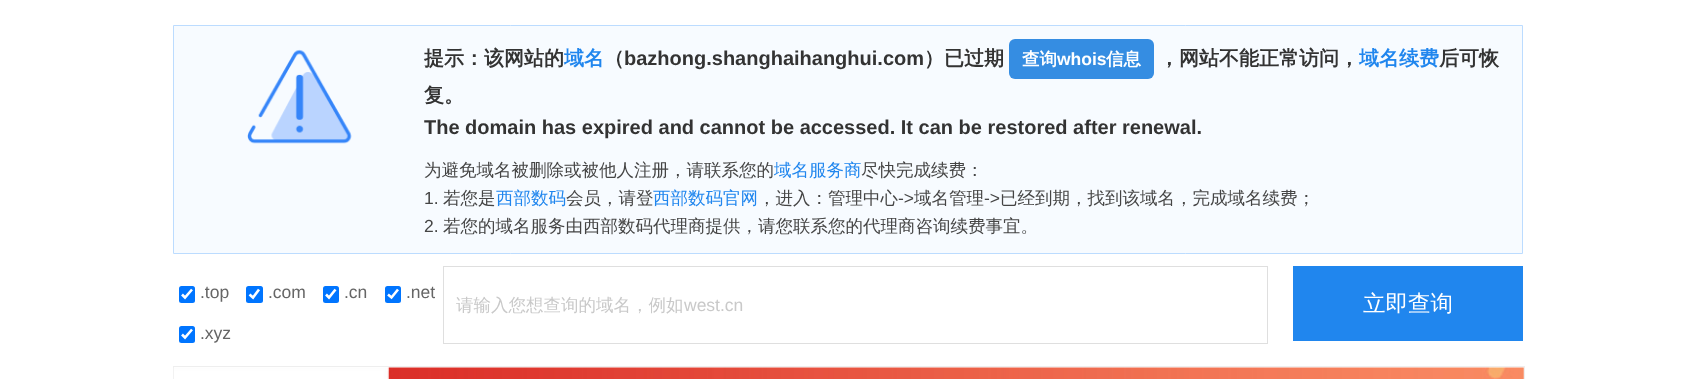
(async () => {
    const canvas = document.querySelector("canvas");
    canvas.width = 1694;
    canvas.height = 379;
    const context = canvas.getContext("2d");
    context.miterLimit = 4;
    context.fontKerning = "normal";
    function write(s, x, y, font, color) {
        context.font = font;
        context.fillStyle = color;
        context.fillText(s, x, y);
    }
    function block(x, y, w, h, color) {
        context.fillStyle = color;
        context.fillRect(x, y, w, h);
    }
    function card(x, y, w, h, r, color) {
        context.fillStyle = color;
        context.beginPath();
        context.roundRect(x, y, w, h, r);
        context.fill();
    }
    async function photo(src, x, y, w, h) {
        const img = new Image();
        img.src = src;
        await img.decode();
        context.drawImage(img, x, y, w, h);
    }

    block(0, 0, 1694, 379, "rgb(255, 255, 255)");
    context.fillStyle = "rgb(247, 251, 255)";
    context.beginPath();
    context.rect(173.5, 25.5, 1349, 228);
    context.fill();
    context.strokeStyle = "rgb(188, 220, 255)";
    context.stroke();
    await photo("media/1.png", 247, 49, 105, 95);
    write("提示：该网站的", 424, 65, "bold 20px WenQuanYi Zen Hei", "rgb(51, 51, 51)");
    write("域名", 564, 65, "bold 20px WenQuanYi Zen Hei", "rgb(32, 134, 238)");
    write("（", 604, 65, "bold 20px WenQuanYi Zen Hei", "rgb(51, 51, 51)");
    write("bazhong.shanghaihanghui.com", 624, 65, "bold 20px Liberation Sans", "rgb(51, 51, 51)");
    write("）已过期", 924, 65, "bold 20px WenQuanYi Zen Hei", "rgb(51, 51, 51)");
    card(1009, 39, 145, 40, 6, "rgb(53, 141, 226)");
    write("查询", 1022, 65, "bold 17.5px WenQuanYi Zen Hei", "rgb(255, 255, 255)");
    write("whois", 1057, 65, "bold 17.5px Liberation Sans", "rgb(255, 255, 255)");
    write("信息", 1106, 65, "bold 17.5px WenQuanYi Zen Hei", "rgb(255, 255, 255)");
    write("，网站不能正常访问，", 1159, 65, "bold 20px WenQuanYi Zen Hei", "rgb(51, 51, 51)");
    write("域名续费", 1359, 65, "bold 20px WenQuanYi Zen Hei", "rgb(32, 134, 238)");
    write("后可恢", 1439, 65, "bold 20px WenQuanYi Zen Hei", "rgb(51, 51, 51)");
    write("复。", 424, 102, "bold 20px WenQuanYi Zen Hei", "rgb(51, 51, 51)");
    write("The domain has expired and cannot be accessed. It can be restored after renewal.", 424, 134, "bold 20px Liberation Sans", "rgb(51, 51, 51)");
    write("为避免域名被删除或被他人注册，请联系您的", 424, 176, "500 17.5px WenQuanYi Zen Hei", "rgb(69, 69, 69)");
    write("域名服务商", 774, 176, "500 17.5px WenQuanYi Zen Hei", "rgb(32, 134, 238)");
    write("尽快完成续费：", 861, 176, "500 17.5px WenQuanYi Zen Hei", "rgb(69, 69, 69)");
    write("1.", 424, 204, "17.5px Liberation Sans", "rgb(69, 69, 69)");
    write("若您是", 443, 204, "500 17.5px WenQuanYi Zen Hei", "rgb(69, 69, 69)");
    write("西部数码", 496, 204, "500 17.5px WenQuanYi Zen Hei", "rgb(32, 134, 238)");
    write("会员，请登", 566, 204, "500 17.5px WenQuanYi Zen Hei", "rgb(69, 69, 69)");
    write("西部数码官网", 653, 204, "500 17.5px WenQuanYi Zen Hei", "rgb(32, 134, 238)");
    write("，进入：管理中心", 758, 204, "500 17.5px WenQuanYi Zen Hei", "rgb(69, 69, 69)");
    write("->", 898, 204, "17.5px Liberation Sans", "rgb(69, 69, 69)");
    write("域名管理", 914, 204, "500 17.5px WenQuanYi Zen Hei", "rgb(69, 69, 69)");
    write("->", 984, 204, "17.5px Liberation Sans", "rgb(69, 69, 69)");
    write("已经到期，找到该域名，完成域名续费；", 1000, 204, "500 17.5px WenQuanYi Zen Hei", "rgb(69, 69, 69)");
    write("2.", 424, 232, "17.5px Liberation Sans", "rgb(69, 69, 69)");
    write("若您的域名服务由西部数码代理商提供，请您联系您的代理商咨询续费事宜。", 443, 232, "500 17.5px WenQuanYi Zen Hei", "rgb(69, 69, 69)");
    card(179, 286, 16, 17, 2.5, "rgb(0, 117, 255)");
    context.beginPath();
    context.moveTo(182, 294.5);
    context.lineTo(185, 297.5);
    context.lineTo(192, 289.5);
    context.strokeStyle = "rgb(255, 255, 255)";
    context.lineWidth = 2.6;
    context.stroke();
    write(".top", 200, 298, "17.5px Liberation Sans", "rgb(102, 102, 102)");
    card(246, 286, 17, 17, 2.5, "rgb(0, 117, 255)");
    context.beginPath();
    context.moveTo(249.5, 294.5);
    context.lineTo(253, 297.5);
    context.lineTo(259, 289.5);
    context.stroke();
    write(".com", 268, 298, "17.5px Liberation Sans", "rgb(102, 102, 102)");
    card(323, 286, 16, 17, 2.5, "rgb(0, 117, 255)");
    context.beginPath();
    context.moveTo(326, 294.5);
    context.lineTo(329, 297.5);
    context.lineTo(335.5, 289.5);
    context.stroke();
    write(".cn", 344, 298, "17.5px Liberation Sans", "rgb(102, 102, 102)");
    card(385, 286, 16, 17, 2.5, "rgb(0, 117, 255)");
    context.beginPath();
    context.moveTo(388, 294.5);
    context.lineTo(391.5, 297.5);
    context.lineTo(398, 289.5);
    context.stroke();
    write(".net", 406, 298, "17.5px Liberation Sans", "rgb(102, 102, 102)");
    card(179, 326, 16, 17, 2.5, "rgb(0, 117, 255)");
    context.beginPath();
    context.moveTo(182, 334.5);
    context.lineTo(185, 337.5);
    context.lineTo(192, 329.5);
    context.stroke();
    write(".xyz", 200, 339, "17.5px Liberation Sans", "rgb(102, 102, 102)");
    context.strokeStyle = "rgb(223, 223, 223)";
    context.lineWidth = 1;
    context.strokeRect(443.5, 266.5, 824, 77);
    write("请输入您想查询的域名，例如", 456, 311, "500 17.5px WenQuanYi Zen Hei", "rgb(201, 201, 201)");
    write("west.cn", 684, 311, "17.5px Liberation Sans", "rgb(201, 201, 201)");
    block(1293, 266, 230, 75, "rgb(32, 134, 238)");
    write("立即查询", 1363, 311, "500 22.5px WenQuanYi Zen Hei", "rgb(255, 255, 255)");
    context.strokeStyle = "rgb(238, 238, 238)";
    context.strokeRect(173.5, 366.5, 1351, 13);
    await photo("media/2.png", 173, 367, 1351, 12);
})();
